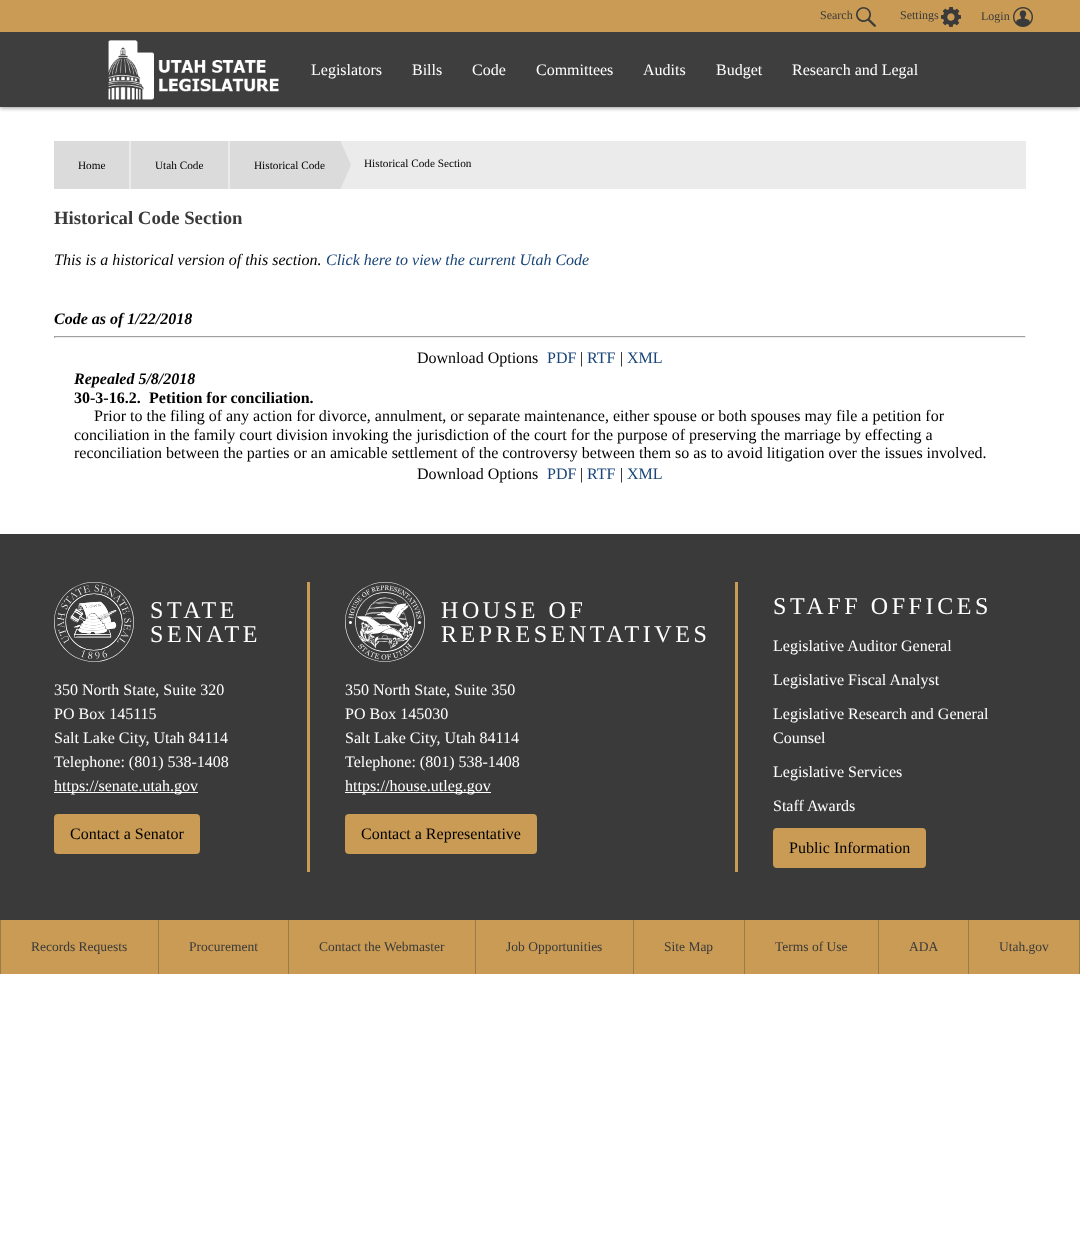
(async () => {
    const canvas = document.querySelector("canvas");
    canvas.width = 1080;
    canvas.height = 1236;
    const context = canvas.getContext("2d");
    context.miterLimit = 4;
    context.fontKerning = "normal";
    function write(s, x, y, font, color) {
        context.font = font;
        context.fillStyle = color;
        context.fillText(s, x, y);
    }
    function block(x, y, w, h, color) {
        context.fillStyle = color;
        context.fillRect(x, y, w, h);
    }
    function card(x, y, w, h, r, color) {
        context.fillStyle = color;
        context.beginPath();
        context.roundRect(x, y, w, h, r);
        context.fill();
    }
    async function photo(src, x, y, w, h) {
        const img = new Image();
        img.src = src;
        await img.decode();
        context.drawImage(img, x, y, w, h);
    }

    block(0, 0, 1080, 1236, "rgb(255, 255, 255)");
    context.fillStyle = "rgba(0, 0, 0, 0.4)";
    context.filter = "blur(2px)";
    context.beginPath();
    context.rect(0, 1, 1080, 107);
    context.fill();
    context.filter = "none";
    block(0, 0, 1080, 32, "rgb(202, 155, 84)");
    write("Search", 820, 19, "12px Liberation Serif", "rgb(58, 58, 58)");
    await photo("media/1.png", 856, 7, 20, 20);
    write("Settings", 900, 19, "12px Liberation Serif", "rgb(58, 58, 58)");
    await photo("media/2.png", 941, 7, 20, 20);
    write("Login", 981, 20, "12px Liberation Serif", "rgb(58, 58, 58)");
    await photo("media/3.png", 1013, 7, 20, 20);
    block(0, 32, 1080, 75, "rgb(62, 62, 62)");
    await photo("media/4.png", 108, 40, 171, 60);
    write("Legislators", 311, 75, "16px Liberation Serif", "rgb(255, 255, 255)");
    write("Bills", 412, 75, "16px Liberation Serif", "rgb(255, 255, 255)");
    write("Code", 472, 75, "16px Liberation Serif", "rgb(255, 255, 255)");
    write("Committees", 536, 75, "16px Liberation Serif", "rgb(255, 255, 255)");
    write("Audits", 643, 75, "16px Liberation Serif", "rgb(255, 255, 255)");
    write("Budget", 716, 75, "16px Liberation Serif", "rgb(255, 255, 255)");
    write("Research and Legal", 792, 75, "16px Liberation Serif", "rgb(255, 255, 255)");
    block(340, 141, 686, 48, "rgb(235, 235, 235)");
    block(54, 141, 75, 48, "rgb(219, 219, 219)");
    block(129, 141, 2, 48, "rgb(235, 235, 235)");
    write("Home", 78, 169, "11.25px Liberation Serif", "rgb(0, 0, 0)");
    block(131, 141, 97, 48, "rgb(219, 219, 219)");
    block(228, 141, 2, 48, "rgb(235, 235, 235)");
    write("Utah Code", 155, 169, "11.25px Liberation Serif", "rgb(0, 0, 0)");
    context.save();
    context.beginPath();
    context.rect(308, 141, 44, 48);
    context.clip();
    context.fillStyle = "rgb(219, 219, 219)";
    context.beginPath();
    context.moveTo(308, 68);
    context.lineTo(351, 165);
    context.lineTo(308, 262);
    context.closePath();
    context.fill();
    context.restore();
    block(230, 141, 78, 48, "rgb(219, 219, 219)");
    write("Historical Code", 254, 169, "11.25px Liberation Serif", "rgb(0, 0, 0)");
    write("Historical Code Section", 364, 167, "11.25px Liberation Serif", "rgb(0, 0, 0)");
    write("Historical Code Section", 54, 224, "bold 18.75px Liberation Serif", "rgb(58, 58, 58)");
    write("This is a historical version of this section.", 54, 265, "italic 16px Liberation Serif", "rgb(0, 0, 0)");
    write("Click here to view the current Utah Code", 326, 265, "italic 16px Liberation Serif", "rgb(24, 68, 119)");
    write("Code as of 1/22/2018", 54, 324, "italic bold 16px Liberation Serif", "rgb(0, 0, 0)");
    block(54, 336, 972, 1, "rgb(159, 159, 159)");
    block(1025, 336, 1, 2, "rgb(238, 238, 238)");
    block(54, 337, 972, 1, "rgb(238, 238, 238)");
    block(54, 336, 1, 2, "rgb(159, 159, 159)");
    write("Download Options", 417, 363, "16px Liberation Serif", "rgb(0, 0, 0)");
    write("PDF", 547, 363, "16px Liberation Serif", "rgb(24, 68, 119)");
    write("|", 580, 363, "16px Liberation Serif", "rgb(0, 0, 0)");
    write("RTF", 587, 363, "16px Liberation Serif", "rgb(24, 68, 119)");
    write("|", 620, 363, "16px Liberation Serif", "rgb(0, 0, 0)");
    write("XML", 627, 363, "16px Liberation Serif", "rgb(24, 68, 119)");
    write("Repealed 5/8/2018", 74, 384, "italic bold 16px Liberation Serif", "rgb(0, 0, 0)");
    write("30-3-16.2.", 74, 403, "bold 16px Liberation Serif", "rgb(0, 0, 0)");
    write("Petition for conciliation.", 149, 403, "bold 16px Liberation Serif", "rgb(0, 0, 0)");
    write("Prior to the filing of any action for divorce, annulment, or separate maintenance, either spouse or both spouses may file a petition for", 94, 421, "16px Liberation Serif", "rgb(0, 0, 0)");
    write("conciliation in the family court division invoking the jurisdiction of the court for the purpose of preserving the marriage by effecting a", 74, 440, "16px Liberation Serif", "rgb(0, 0, 0)");
    write("reconciliation between the parties or an amicable settlement of the controversy between them so as to avoid litigation over the issues involved.", 74, 458, "16px Liberation Serif", "rgb(0, 0, 0)");
    write("Download Options", 417, 479, "16px Liberation Serif", "rgb(0, 0, 0)");
    write("PDF", 547, 479, "16px Liberation Serif", "rgb(24, 68, 119)");
    write("|", 580, 479, "16px Liberation Serif", "rgb(0, 0, 0)");
    write("RTF", 587, 479, "16px Liberation Serif", "rgb(24, 68, 119)");
    write("|", 620, 479, "16px Liberation Serif", "rgb(0, 0, 0)");
    write("XML", 627, 479, "16px Liberation Serif", "rgb(24, 68, 119)");
    block(0, 534, 1080, 386, "rgb(58, 58, 58)");
    block(307, 582, 3, 290, "rgb(202, 155, 84)");
    await photo("media/5.png", 54, 582, 80, 80);
    context.letterSpacing = "3.6px";
    write("STATE", 150, 618, "24px Liberation Serif", "rgb(255, 255, 255)");
    write("SENATE", 150, 642, "24px Liberation Serif", "rgb(255, 255, 255)");
    context.letterSpacing = "0px";
    write("350 North State, Suite 320", 54, 695, "16px Liberation Serif", "rgb(255, 255, 255)");
    write("PO Box 145115", 54, 719, "16px Liberation Serif", "rgb(255, 255, 255)");
    write("Salt Lake City, Utah 84114", 54, 743, "16px Liberation Serif", "rgb(255, 255, 255)");
    write("Telephone: (801) 538-1408", 54, 767, "16px Liberation Serif", "rgb(255, 255, 255)");
    block(54, 792, 144, 1, "rgb(255, 255, 255)");
    write("https://senate.utah.gov", 54, 791, "16px Liberation Serif", "rgb(255, 255, 255)");
    card(54, 814, 146, 40, 4, "rgb(202, 155, 84)");
    write("Contact a Senator", 70, 839, "16px Liberation Serif", "rgb(0, 0, 0)");
    block(735, 582, 3, 290, "rgb(202, 155, 84)");
    await photo("media/6.png", 345, 582, 80, 80);
    context.letterSpacing = "3.6px";
    write("HOUSE OF", 441, 618, "24px Liberation Serif", "rgb(255, 255, 255)");
    write("REPRESENTATIVES", 441, 642, "24px Liberation Serif", "rgb(255, 255, 255)");
    context.letterSpacing = "0px";
    write("350 North State, Suite 350", 345, 695, "16px Liberation Serif", "rgb(255, 255, 255)");
    write("PO Box 145030", 345, 719, "16px Liberation Serif", "rgb(255, 255, 255)");
    write("Salt Lake City, Utah 84114", 345, 743, "16px Liberation Serif", "rgb(255, 255, 255)");
    write("Telephone: (801) 538-1408", 345, 767, "16px Liberation Serif", "rgb(255, 255, 255)");
    block(345, 792, 146, 1, "rgb(255, 255, 255)");
    write("https://house.utleg.gov", 345, 791, "16px Liberation Serif", "rgb(255, 255, 255)");
    card(345, 814, 192, 40, 4, "rgb(202, 155, 84)");
    write("Contact a Representative", 361, 839, "16px Liberation Serif", "rgb(0, 0, 0)");
    context.letterSpacing = "3.6px";
    write("STAFF OFFICES", 773, 614, "24px Liberation Serif", "rgb(255, 255, 255)");
    context.letterSpacing = "0px";
    write("Legislative Auditor General", 773, 651, "16px Liberation Serif", "rgb(255, 255, 255)");
    write("Legislative Fiscal Analyst", 773, 685, "16px Liberation Serif", "rgb(255, 255, 255)");
    write("Legislative Research and General", 773, 719, "16px Liberation Serif", "rgb(255, 255, 255)");
    write("Counsel", 773, 743, "16px Liberation Serif", "rgb(255, 255, 255)");
    write("Legislative Services", 773, 777, "16px Liberation Serif", "rgb(255, 255, 255)");
    write("Staff Awards", 773, 811, "16px Liberation Serif", "rgb(255, 255, 255)");
    card(773, 828, 153, 40, 4, "rgb(202, 155, 84)");
    write("Public Information", 789, 853, "16px Liberation Serif", "rgb(0, 0, 0)");
    block(1, 920, 1078, 54, "rgb(202, 155, 84)");
    block(158, 920, 1, 54, "rgb(154, 123, 69)");
    block(0, 920, 1, 54, "rgb(154, 123, 69)");
    write("Records Requests", 31, 951, "13.5px Liberation Serif", "rgb(58, 58, 58)");
    block(288, 920, 1, 54, "rgb(154, 123, 69)");
    write("Procurement", 189, 951, "13.5px Liberation Serif", "rgb(58, 58, 58)");
    block(475, 920, 1, 54, "rgb(154, 123, 69)");
    write("Contact the Webmaster", 319, 951, "13.5px Liberation Serif", "rgb(58, 58, 58)");
    block(633, 920, 1, 54, "rgb(154, 123, 69)");
    write("Job Opportunities", 506, 951, "13.5px Liberation Serif", "rgb(58, 58, 58)");
    block(744, 920, 1, 54, "rgb(154, 123, 69)");
    write("Site Map", 664, 951, "13.5px Liberation Serif", "rgb(58, 58, 58)");
    block(878, 920, 1, 54, "rgb(154, 123, 69)");
    write("Terms of Use", 775, 951, "13.5px Liberation Serif", "rgb(58, 58, 58)");
    block(968, 920, 1, 54, "rgb(154, 123, 69)");
    write("ADA", 909, 951, "13.5px Liberation Serif", "rgb(58, 58, 58)");
    block(1079, 920, 1, 54, "rgb(154, 123, 69)");
    write("Utah.gov", 999, 951, "13.5px Liberation Serif", "rgb(58, 58, 58)");
})();
